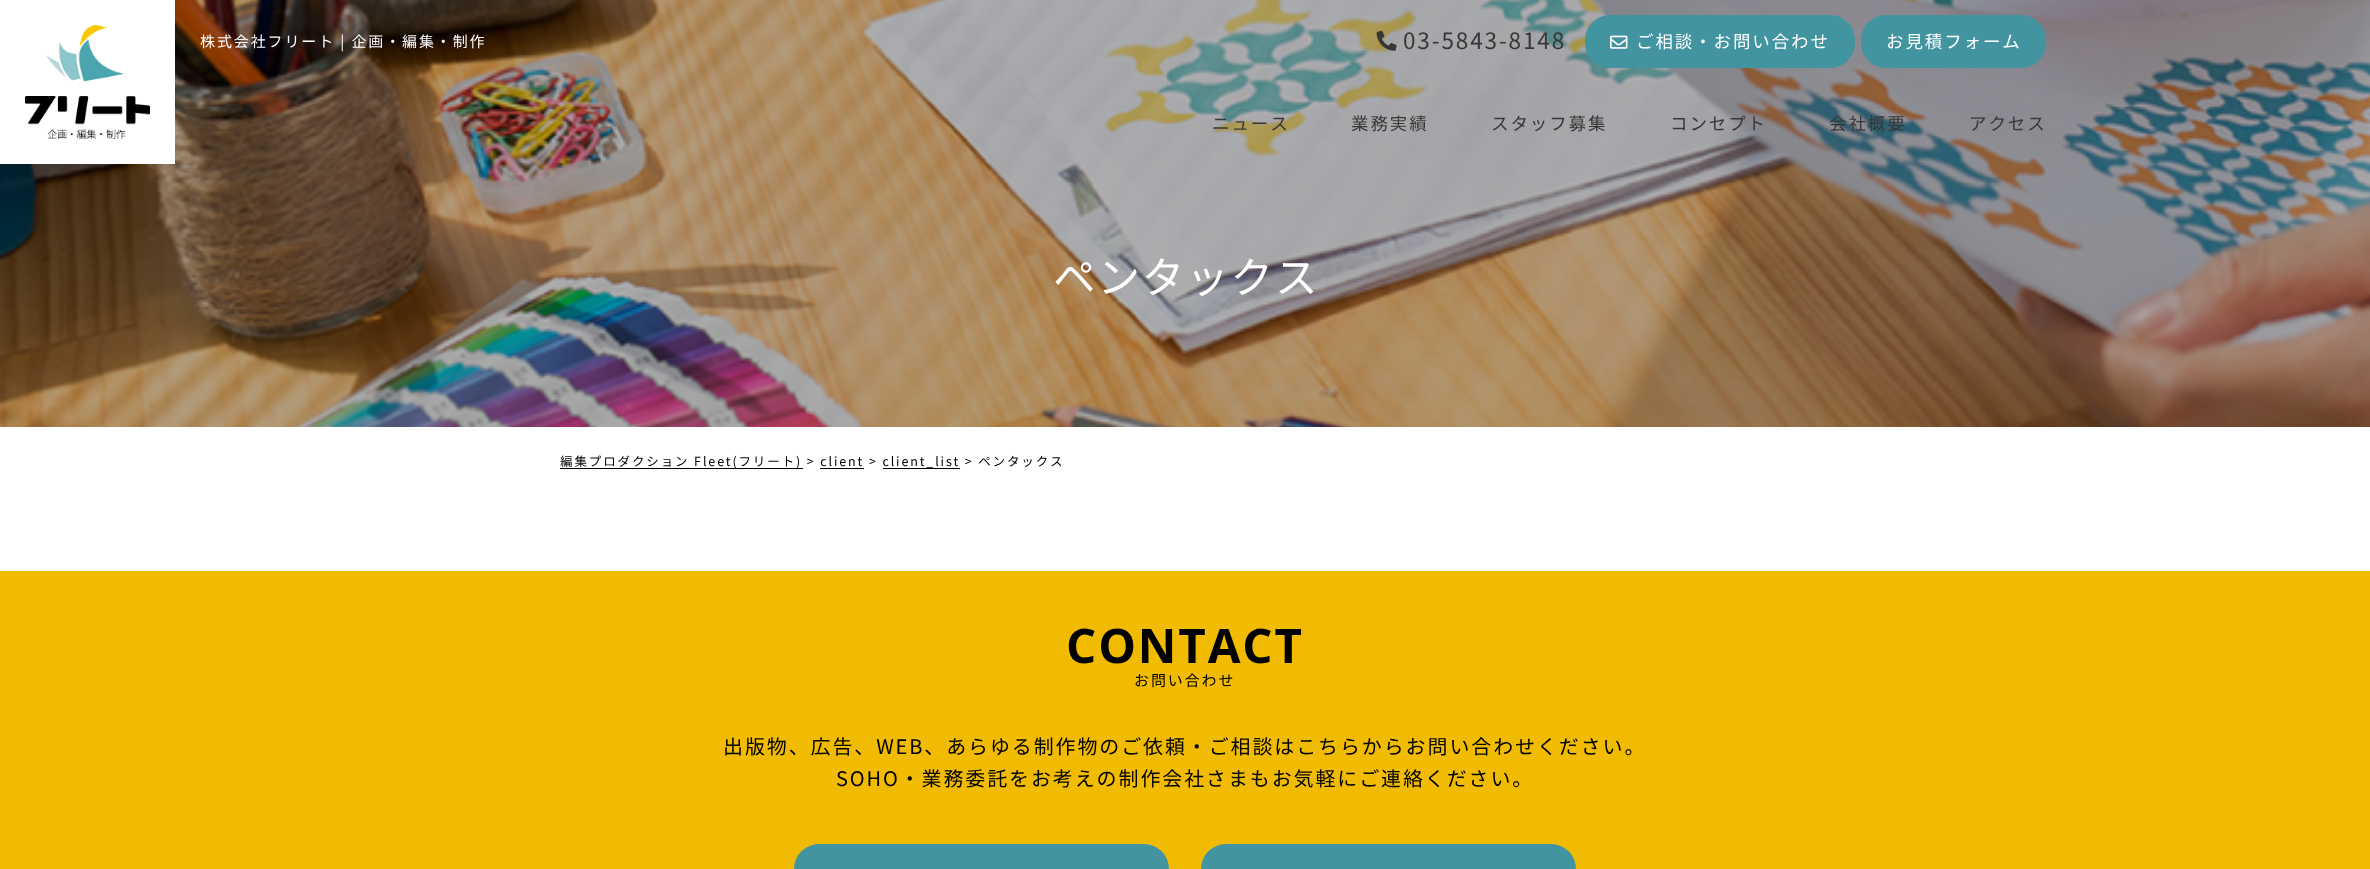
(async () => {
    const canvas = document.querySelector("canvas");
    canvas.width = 2370;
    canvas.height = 869;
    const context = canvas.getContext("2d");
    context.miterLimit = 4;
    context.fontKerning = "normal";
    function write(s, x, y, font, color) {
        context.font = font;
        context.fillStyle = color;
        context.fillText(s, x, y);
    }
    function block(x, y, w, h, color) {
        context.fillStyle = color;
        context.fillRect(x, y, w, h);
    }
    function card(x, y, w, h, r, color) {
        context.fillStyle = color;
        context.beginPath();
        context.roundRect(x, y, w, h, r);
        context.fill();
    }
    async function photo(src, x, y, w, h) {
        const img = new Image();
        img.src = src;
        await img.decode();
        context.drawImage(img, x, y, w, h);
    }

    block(0, 0, 2370, 869, "rgb(255, 255, 255)");
    await photo("media/4.png", 0, 0, 2370, 427);
    block(0, 0, 175, 164, "rgb(255, 255, 255)");
    await photo("media/1.png", 25, 25, 125, 114);
    context.letterSpacing = "1.88px";
    write("株式会社フリート | 企画・編集・制作", 200, 47, "15px Noto Sans JP", "rgb(255, 255, 255)");
    await photo("media/2.png", 1376, 30, 21, 21);
    write("03-5843-8148", 1403, 49, "22.5px Noto Sans JP", "rgb(55, 55, 55)");
    card(1585, 15, 270, 53, 25, "rgb(65, 148, 160)");
    await photo("media/3.png", 1610, 35, 18, 14);
    write("ご相談・お問い合わせ", 1636, 48, "17.5px Noto Sans JP", "rgb(255, 255, 255)");
    card(1861, 15, 185, 53, 25, "rgb(65, 148, 160)");
    write("お見積フォーム", 1886, 48, "17.5px Noto Sans JP", "rgb(255, 255, 255)");
    write("ニュース", 1212, 130, "17.5px Noto Sans JP", "rgb(55, 55, 55)");
    write("業務実績", 1351, 130, "17.5px Noto Sans JP", "rgb(55, 55, 55)");
    write("スタッフ募集", 1491, 130, "17.5px Noto Sans JP", "rgb(55, 55, 55)");
    write("コンセプト", 1670, 130, "17.5px Noto Sans JP", "rgb(55, 55, 55)");
    write("会社概要", 1829, 130, "17.5px Noto Sans JP", "rgb(55, 55, 55)");
    write("アクセス", 1969, 130, "17.5px Noto Sans JP", "rgb(55, 55, 55)");
    write("ペンタックス", 1053, 293, "42.5px Noto Sans JP", "rgb(255, 255, 255)");
    block(560, 468, 243, 1, "rgb(0, 0, 0)");
    write("編集プロダクション Fleet(フリート) > client > client_list > ペンタックス", 560, 466, "12.5px Noto Sans JP", "rgb(0, 0, 0)");
    block(820, 468, 44, 1, "rgb(0, 0, 0)");
    block(883, 468, 77, 1, "rgb(0, 0, 0)");
    block(0, 571, 2370, 298, "rgb(240, 187, 1)");
    write("CONTACT", 1066, 663, "bold 47.5px Open Sans", "rgb(0, 0, 0)");
    write("お問い合わせ", 1134, 686, "15px Noto Sans JP", "rgb(0, 0, 0)");
    write("出版物、広告、WEB、あらゆる制作物のご依頼・ご相談はこちらからお問い合わせください。", 723, 754, "20px Noto Sans JP", "rgb(0, 0, 0)");
    write("SOHO・業務委託をお考えの制作会社さまもお気軽にご連絡ください。", 836, 786, "20px Noto Sans JP", "rgb(0, 0, 0)");
    card(794, 844, 375, 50, 25, "rgb(65, 148, 160)");
    card(1201, 844, 375, 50, 25, "rgb(65, 148, 160)");
})();
